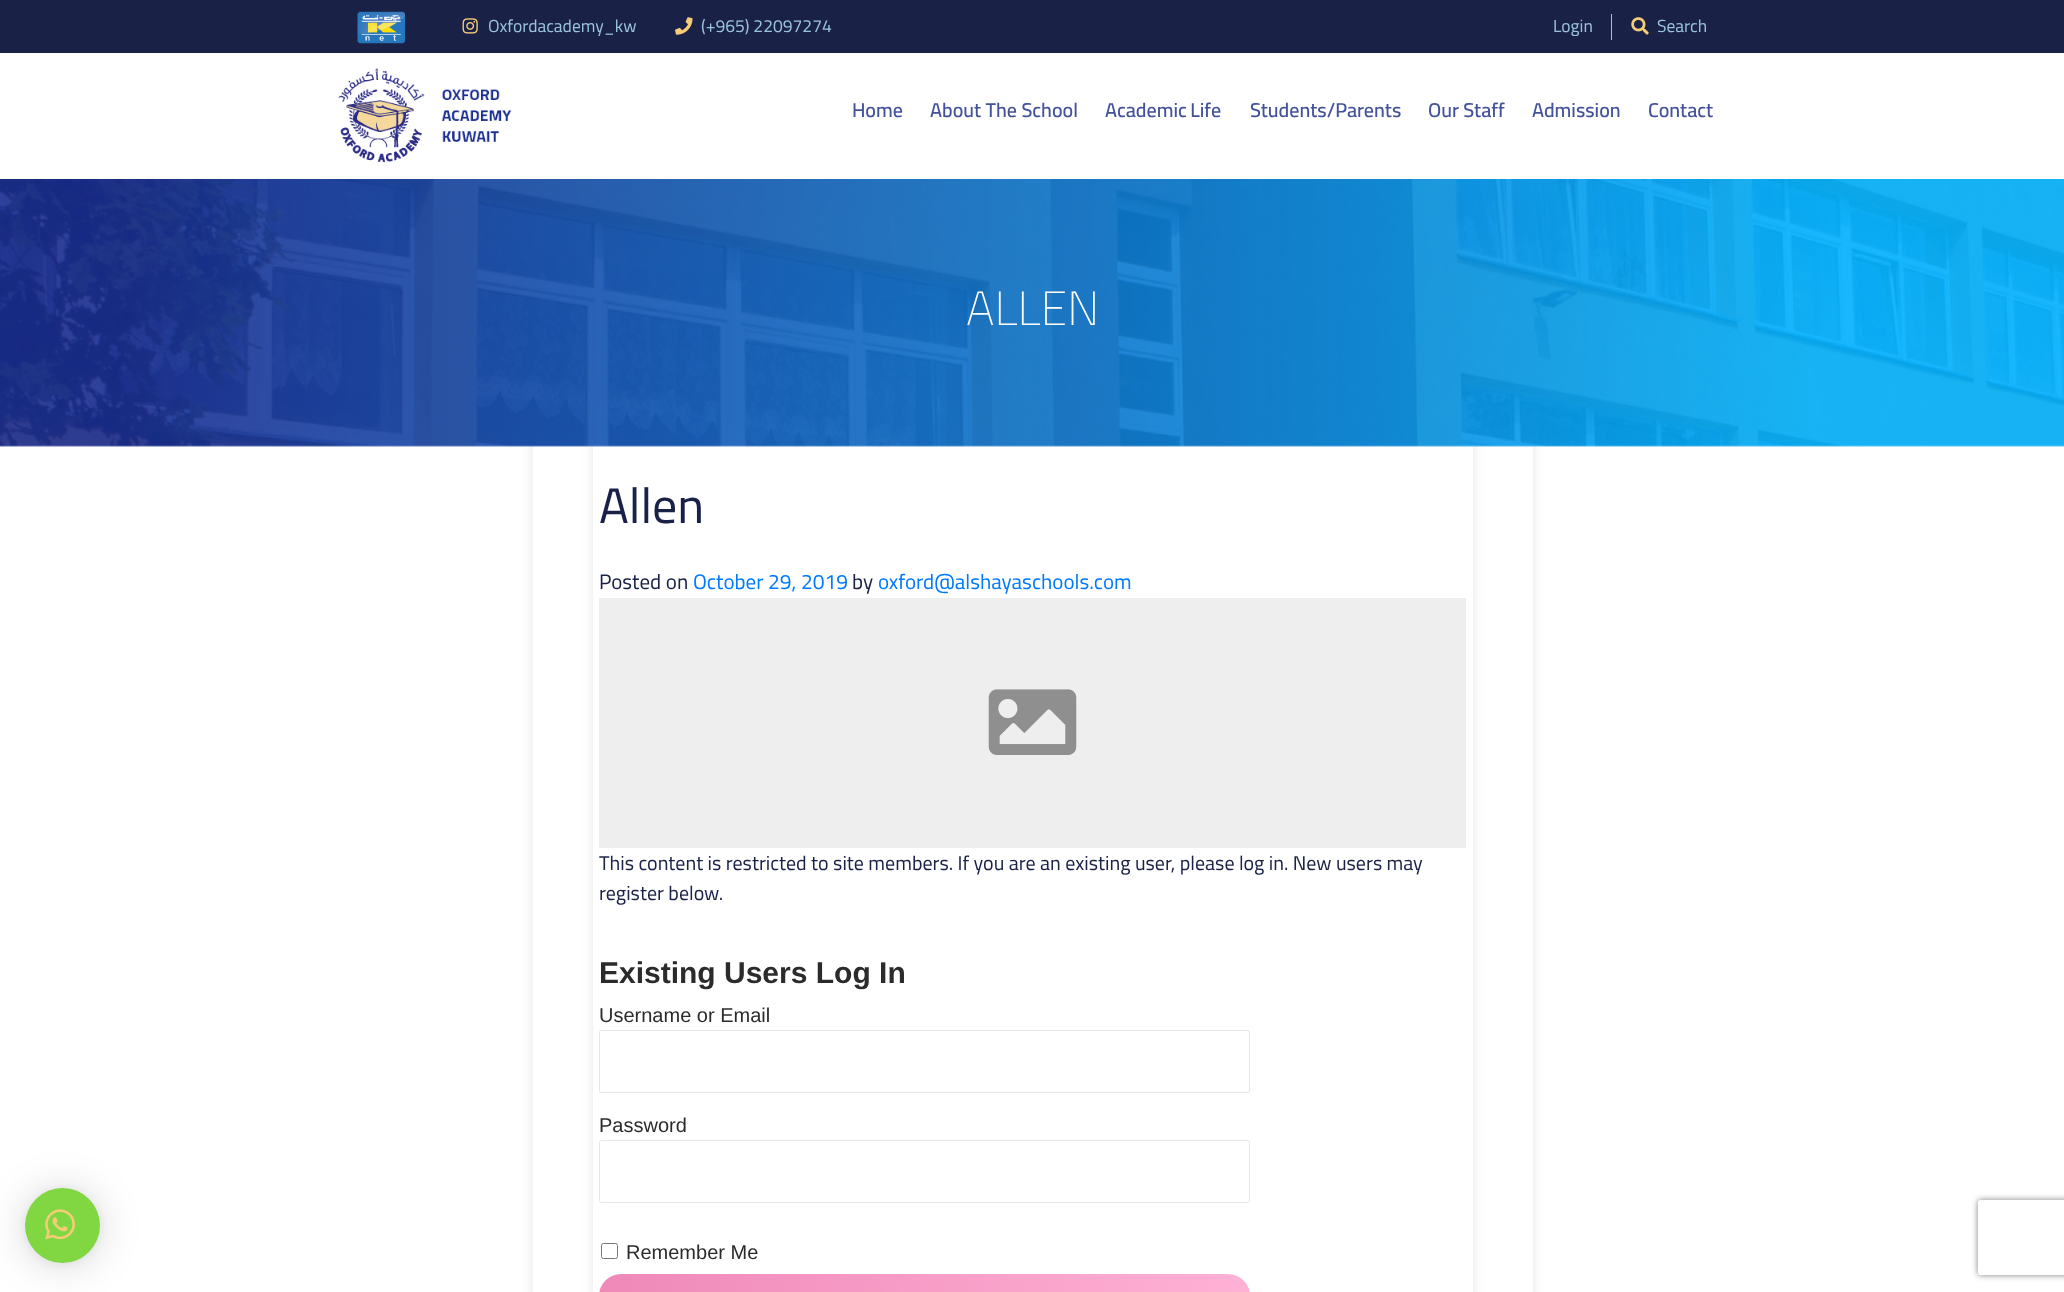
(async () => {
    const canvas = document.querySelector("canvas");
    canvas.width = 2064;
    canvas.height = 1292;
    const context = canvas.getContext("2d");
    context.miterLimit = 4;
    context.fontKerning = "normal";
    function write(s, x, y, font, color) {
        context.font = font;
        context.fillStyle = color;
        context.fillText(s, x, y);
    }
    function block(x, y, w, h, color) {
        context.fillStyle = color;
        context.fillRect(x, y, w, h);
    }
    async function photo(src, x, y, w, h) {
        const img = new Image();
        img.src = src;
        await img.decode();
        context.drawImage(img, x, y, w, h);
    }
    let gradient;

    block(0, 0, 2064, 1292, "rgb(255, 255, 255)");
    block(0, 0, 2064, 53, "rgb(25, 33, 71)");
    await photo("media/1.png", 357, 11, 48, 33);
    await photo("media/2.png", 462, 18, 16, 16);
    write("Oxfordacademy_kw", 488, 32, "17.5px Cairo", "rgb(155, 195, 219)");
    await photo("media/3.png", 675, 17, 18, 18);
    write("(+965) 22097274", 701, 32, "17.5px Cairo", "rgb(155, 195, 219)");
    write("Login", 1553, 32, "17.5px Cairo", "rgb(155, 195, 219)");
    block(1611, 14, 1, 26, "rgb(155, 195, 219)");
    await photo("media/4.png", 1631, 17, 18, 18);
    write("Search", 1657, 32, "17.5px Cairo", "rgb(155, 195, 219)");
    await photo("media/5.png", 338, 68, 174, 95);
    write("Home", 852, 117, "600 20px Cairo", "rgb(67, 82, 154)");
    write("About The School", 930, 117, "600 20px Cairo", "rgb(67, 82, 154)");
    context.wordSpacing = "-1px";
    write("Academic Life", 1105, 117, "600 20px Cairo", "rgb(67, 82, 154)");
    context.wordSpacing = "0px";
    write("Students/Parents", 1250, 117, "600 20px Cairo", "rgb(67, 82, 154)");
    write("Our Staff", 1428, 117, "600 20px Cairo", "rgb(67, 82, 154)");
    write("Admission", 1532, 117, "600 20px Cairo", "rgb(67, 82, 154)");
    write("Contact", 1648, 117, "600 20px Cairo", "rgb(67, 82, 154)");
    context.fillStyle = "rgba(0, 0, 0, 0.1)";
    context.filter = "blur(6px)";
    context.beginPath();
    context.rect(533, 378, 1000, 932);
    context.fill();
    context.filter = "none";
    block(533, 445, 1000, 847, "rgb(255, 255, 255)");
    context.fillStyle = "rgba(0, 0, 0, 0.1)";
    context.filter = "blur(6px)";
    context.beginPath();
    context.rect(593, 438, 880, 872);
    context.fill();
    context.filter = "none";
    block(593, 445, 880, 847, "rgb(255, 255, 255)");
    await photo("media/6.png", 0, 179, 2064, 268);
    write("ALLEN", 966, 325, "200 48px Cairo", "rgb(255, 255, 255)");
    context.fillStyle = "rgba(0, 0, 0, 0.16)";
    context.filter = "blur(20px)";
    context.beginPath();
    context.roundRect(25, 1190, 75, 75, 37.5);
    context.fill();
    context.filter = "none";
    context.fillStyle = "rgba(0, 0, 0, 0.06)";
    context.filter = "blur(4px)";
    context.beginPath();
    context.roundRect(25, 1189, 75, 75, 37.5);
    context.fill();
    context.filter = "none";
    context.fillStyle = "rgb(129, 215, 66)";
    context.beginPath();
    context.arc(62.5, 1225.5, 37.5, 0, Math.PI * 2);
    context.fill();
    await photo("media/7.png", 45, 1209, 30, 31);
    write("Allen", 599, 523, "50px Cairo", "rgb(25, 33, 71)");
    write("Posted on", 599, 589, "21px Cairo", "rgb(25, 33, 71)");
    write("October 29, 2019", 693, 589, "21px Cairo", "rgb(0, 123, 255)");
    write("by", 852, 589, "21px Cairo", "rgb(25, 33, 71)");
    write("oxford@alshayaschools.com", 878, 589, "21px Cairo", "rgb(0, 123, 255)");
    block(599, 598, 867, 250, "rgb(238, 238, 238)");
    await photo("media/8.png", 988, 689, 89, 66);
    write("This content is restricted to site members. If you are an existing user, please log in. New users may", 599, 870, "20px Cairo", "rgb(25, 33, 71)");
    write("register below.", 599, 900, "20px Cairo", "rgb(25, 33, 71)");
    write("Existing Users Log In", 599, 983, "bold 30px Liberation Sans", "rgb(43, 43, 43)");
    write("Username or Email", 599, 1022, "20px Liberation Sans", "rgb(43, 43, 43)");
    context.beginPath();
    context.roundRect(599.5, 1030.5, 650, 62, 2);
    context.strokeStyle = "rgb(230, 230, 230)";
    context.stroke();
    write("Password", 599, 1132, "20px Liberation Sans", "rgb(43, 43, 43)");
    context.beginPath();
    context.roundRect(599.5, 1140.5, 650, 62, 2);
    context.stroke();
    context.beginPath();
    context.roundRect(601.5, 1243.5, 16, 15, 2);
    context.strokeStyle = "rgb(118, 118, 118)";
    context.stroke();
    write("Remember Me", 626, 1259, "20px Liberation Sans", "rgb(43, 43, 43)");
    gradient = context.createLinearGradient(599, 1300, 1250, 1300);
    gradient.addColorStop(0, "rgb(239, 137, 184)");
    gradient.addColorStop(1, "rgb(255, 177, 213)");
    context.fillStyle = gradient;
    context.beginPath();
    context.roundRect(599, 1274, 651, 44, 26);
    context.fill();
    context.save();
    context.beginPath();
    context.moveTo(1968, 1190);
    context.lineTo(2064, 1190);
    context.lineTo(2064, 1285);
    context.lineTo(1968, 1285);
    context.closePath();
    context.moveTo(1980.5, 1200);
    context.lineTo(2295.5, 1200);
    context.bezierCurveTo(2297, 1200, 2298, 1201, 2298, 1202.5);
    context.lineTo(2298, 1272.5);
    context.bezierCurveTo(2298, 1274, 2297, 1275, 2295.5, 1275);
    context.lineTo(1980.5, 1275);
    context.bezierCurveTo(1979, 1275, 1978, 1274, 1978, 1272.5);
    context.lineTo(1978, 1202.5);
    context.bezierCurveTo(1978, 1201, 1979, 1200, 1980.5, 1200);
    context.closePath();
    context.clip("evenodd");
    context.fillStyle = "rgb(128, 128, 128)";
    context.filter = "blur(3px)";
    context.beginPath();
    context.roundRect(1978, 1200, 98, 75, 2.5);
    context.fill();
    context.filter = "none";
    context.restore();
})();
